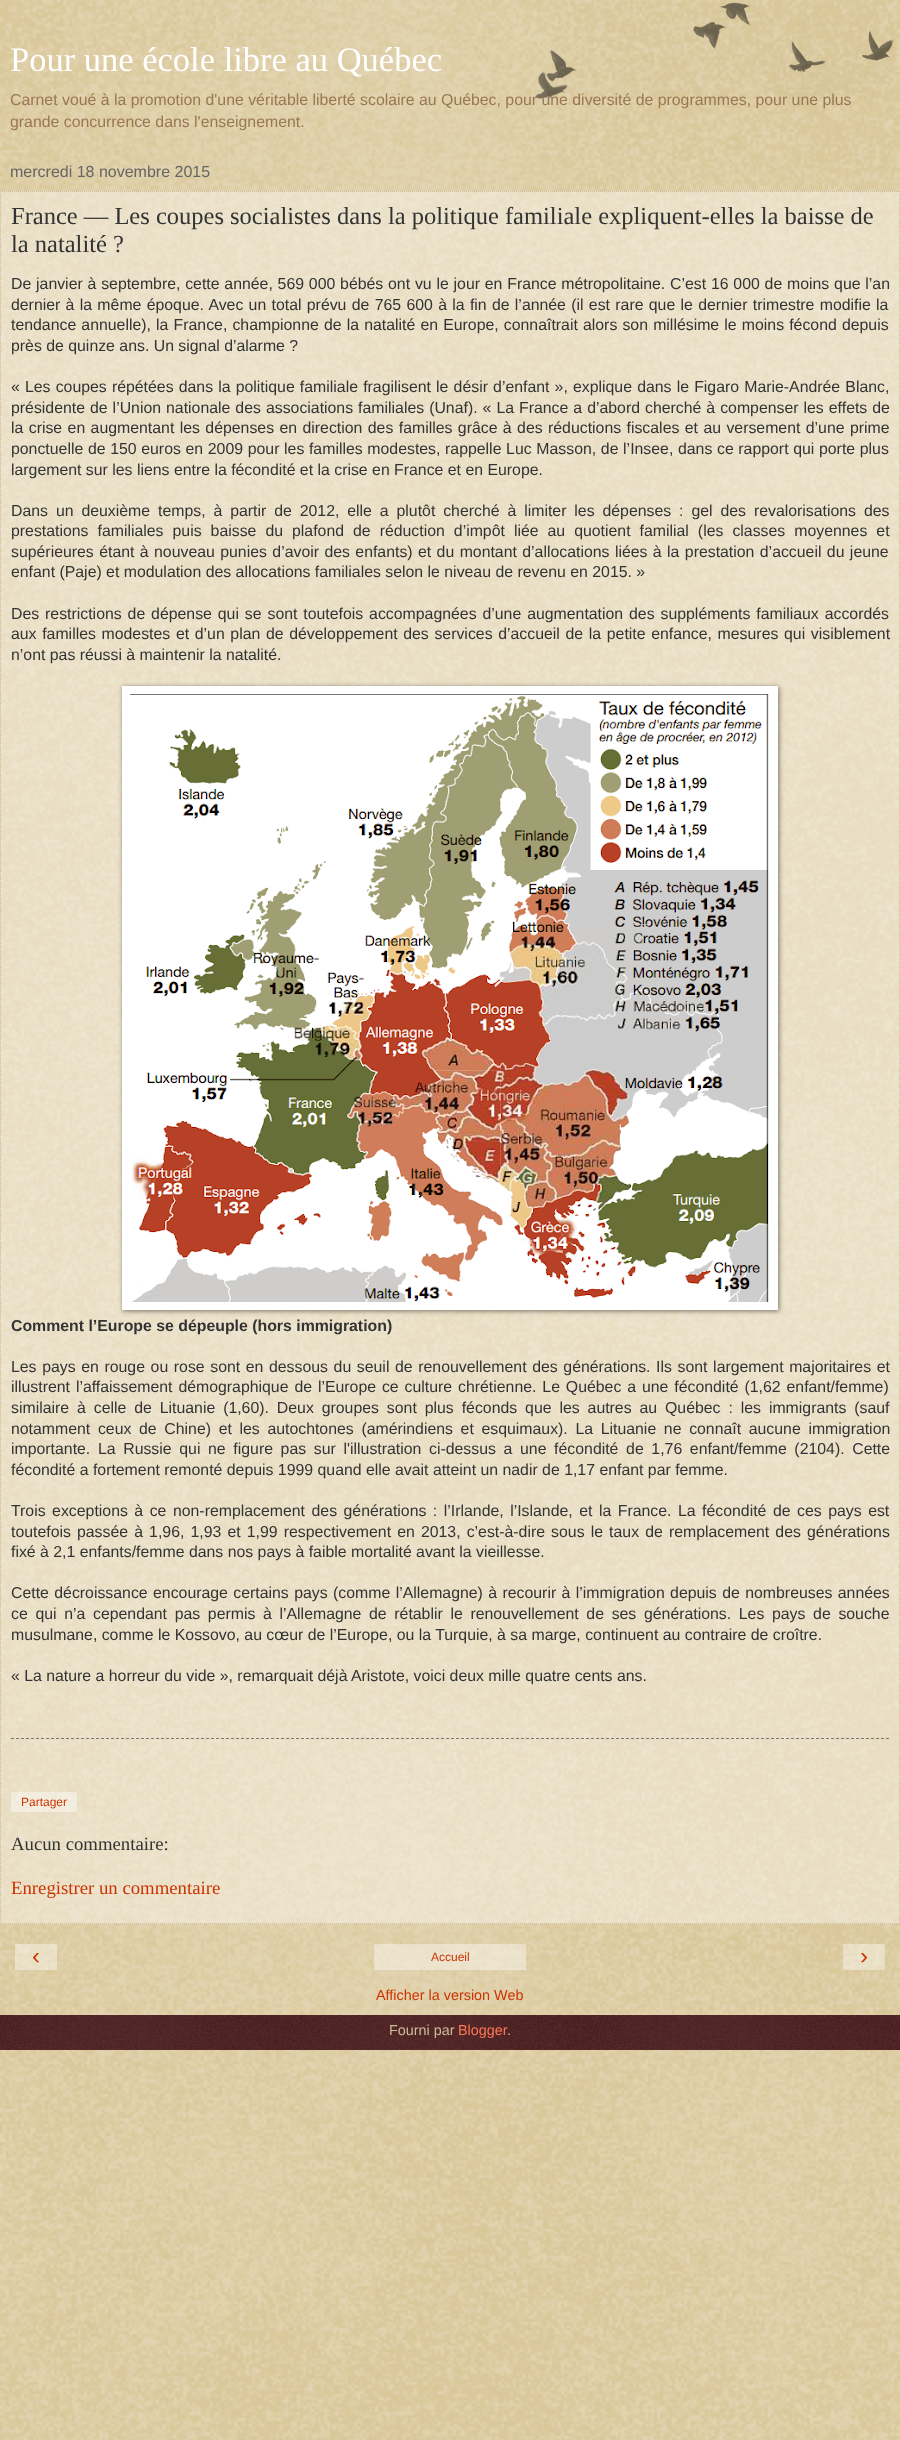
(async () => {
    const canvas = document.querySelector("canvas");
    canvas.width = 900;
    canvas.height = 2440;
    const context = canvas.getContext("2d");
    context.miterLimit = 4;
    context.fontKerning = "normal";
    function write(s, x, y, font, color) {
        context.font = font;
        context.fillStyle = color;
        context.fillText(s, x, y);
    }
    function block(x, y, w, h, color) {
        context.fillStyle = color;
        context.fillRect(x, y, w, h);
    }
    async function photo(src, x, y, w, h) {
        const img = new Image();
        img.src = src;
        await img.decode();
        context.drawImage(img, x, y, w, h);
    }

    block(0, 0, 900, 2440, "rgb(192, 161, 84)");
    await photo("media/1.png", 0, 0, 900, 2440);
    await photo("media/2.png", 535, 2, 359, 97);
    write("Pour une école libre au Québec", 10, 71, "34.5px Liberation Serif", "rgb(255, 255, 255)");
    write("Carnet voué à la promotion d'une véritable liberté scolaire au Québec, pour une diversité de programmes, pour une plus", 10, 105, "15.85px Liberation Sans", "rgb(153, 119, 85)");
    write("grande concurrence dans l'enseignement.", 10, 127, "15.85px Liberation Sans", "rgb(153, 119, 85)");
    write("mercredi 18 novembre 2015", 10, 177, "16px Liberation Sans", "rgb(102, 102, 102)");
    block(0, 191, 900, 1733, "rgba(255, 255, 255, 0.4)");
    context.beginPath();
    context.moveTo(0, 191.5);
    context.lineTo(900, 191.5);
    context.strokeStyle = "rgb(204, 187, 153)";
    context.setLineDash([1, 1]);
    context.stroke();
    context.beginPath();
    context.moveTo(899.5, 191);
    context.lineTo(899.5, 1924);
    context.stroke();
    context.beginPath();
    context.moveTo(0, 1923.5);
    context.lineTo(900, 1923.5);
    context.stroke();
    context.beginPath();
    context.moveTo(0.5, 191);
    context.lineTo(0.5, 1924);
    context.stroke();
    write("France — Les coupes socialistes dans la politique familiale expliquent-elles la baisse de", 11, 224, "24.5px Liberation Serif", "rgb(51, 51, 51)");
    write("la natalité ?", 11, 252, "24.5px Liberation Serif", "rgb(51, 51, 51)");
    context.wordSpacing = "0.4px";
    write("De janvier à septembre, cette année, 569 000 bébés ont vu le jour en France métropolitaine. C’est 16 000 de moins que l’an", 11, 289, "15.85px Liberation Sans", "rgb(51, 51, 51)");
    context.wordSpacing = "0.9px";
    write("dernier à la même époque. Avec un total prévu de 765 600 à la fin de l’année (il est rare que le dernier trimestre modifie la", 11, 310, "15.85px Liberation Sans", "rgb(51, 51, 51)");
    context.wordSpacing = "0.75px";
    write("tendance annuelle), la France, championne de la natalité en Europe, connaîtrait alors son millésime le moins fécond depuis", 11, 330, "15.85px Liberation Sans", "rgb(51, 51, 51)");
    context.wordSpacing = "0px";
    write("près de quinze ans. Un signal d’alarme ?", 11, 351, "15.85px Liberation Sans", "rgb(51, 51, 51)");
    context.wordSpacing = "0.75px";
    write("« Les coupes répétées dans la politique familiale fragilisent le désir d’enfant », explique dans le Figaro Marie-Andrée Blanc,", 11, 392, "15.85px Liberation Sans", "rgb(51, 51, 51)");
    context.wordSpacing = "0.6px";
    write("présidente de l’Union nationale des associations familiales (Unaf). « La France a d’abord cherché à compenser les effets de", 11, 413, "15.85px Liberation Sans", "rgb(51, 51, 51)");
    context.wordSpacing = "1px";
    write("la crise en augmentant les dépenses en direction des familles grâce à des réductions fiscales et au versement d’une prime", 11, 433, "15.85px Liberation Sans", "rgb(51, 51, 51)");
    context.wordSpacing = "0.25px";
    write("ponctuelle de 150 euros en 2009 pour les familles modestes, rappelle Luc Masson, de l’Insee, dans ce rapport qui porte plus", 11, 454, "15.85px Liberation Sans", "rgb(51, 51, 51)");
    context.wordSpacing = "0px";
    write("largement sur les liens entre la fécondité et la crise en France et en Europe.", 11, 475, "15.85px Liberation Sans", "rgb(51, 51, 51)");
    context.wordSpacing = "3.5px";
    write("Dans un deuxième temps, à partir de 2012, elle a plutôt cherché à limiter les dépenses : gel des revalorisations des", 11, 516, "15.85px Liberation Sans", "rgb(51, 51, 51)");
    context.wordSpacing = "4.6px";
    write("prestations familiales puis baisse du plafond de réduction d’impôt liée au quotient familial (les classes moyennes et", 11, 536, "15.85px Liberation Sans", "rgb(51, 51, 51)");
    context.wordSpacing = "1px";
    write("supérieures étant à nouveau punies d’avoir des enfants) et du montant d’allocations liées à la prestation d’accueil du jeune", 11, 557, "15.85px Liberation Sans", "rgb(51, 51, 51)");
    context.wordSpacing = "0px";
    write("enfant (Paje) et modulation des allocations familiales selon le niveau de revenu en 2015. »", 11, 577, "15.85px Liberation Sans", "rgb(51, 51, 51)");
    context.wordSpacing = "1.5px";
    write("Des restrictions de dépense qui se sont toutefois accompagnées d’une augmentation des suppléments familiaux accordés", 11, 619, "15.85px Liberation Sans", "rgb(51, 51, 51)");
    context.wordSpacing = "1.25px";
    write("aux familles modestes et d’un plan de développement des services d’accueil de la petite enfance, mesures qui visiblement", 11, 639, "15.85px Liberation Sans", "rgb(51, 51, 51)");
    context.wordSpacing = "0px";
    write("n’ont pas réussi à maintenir la natalité.", 11, 660, "15.85px Liberation Sans", "rgb(51, 51, 51)");
    context.fillStyle = "rgba(0, 0, 0, 0.5)";
    context.filter = "blur(2.5px)";
    context.beginPath();
    context.rect(123, 687, 656, 624);
    context.fill();
    context.filter = "none";
    block(122, 686, 656, 624, "rgb(255, 255, 255)");
    await photo("media/3.png", 130, 694, 639, 608);
    write("Comment l’Europe se dépeuple (hors immigration)", 11, 1331, "bold 15.85px Liberation Sans", "rgb(51, 51, 51)");
    context.wordSpacing = "1.2px";
    write("Les pays en rouge ou rose sont en dessous du seuil de renouvellement des générations. Ils sont largement majoritaires et", 11, 1372, "15.85px Liberation Sans", "rgb(51, 51, 51)");
    context.wordSpacing = "1.5px";
    write("illustrent l’affaissement démographique de l’Europe ce culture chrétienne. Le Québec a une fécondité (1,62 enfant/femme)", 11, 1392, "15.85px Liberation Sans", "rgb(51, 51, 51)");
    context.wordSpacing = "3.5px";
    write("similaire à celle de Lituanie (1,60). Deux groupes sont plus féconds que les autres au Québec : les immigrants (sauf", 11, 1413, "15.85px Liberation Sans", "rgb(51, 51, 51)");
    context.wordSpacing = "3.25px";
    write("notamment ceux de Chine) et les autochtones (amérindiens et esquimaux). La Lituanie ne connaît aucune immigration", 11, 1434, "15.85px Liberation Sans", "rgb(51, 51, 51)");
    write("importante. La Russie qui ne figure pas sur l'illustration ci-dessus a une fécondité de 1,76 enfant/femme (2104). Cette", 11, 1454, "15.85px Liberation Sans", "rgb(51, 51, 51)");
    context.wordSpacing = "0px";
    write("fécondité a fortement remonté depuis 1999 quand elle avait atteint un nadir de 1,17 enfant par femme.", 11, 1475, "15.85px Liberation Sans", "rgb(51, 51, 51)");
    context.wordSpacing = "2.1px";
    write("Trois exceptions à ce non-remplacement des générations : l’Irlande, l’Islande, et la France. La fécondité de ces pays est", 11, 1516, "15.85px Liberation Sans", "rgb(51, 51, 51)");
    context.wordSpacing = "1.7px";
    write("toutefois passée à 1,96, 1,93 et 1,99 respectivement en 2013, c’est-à-dire sous le taux de remplacement des générations", 11, 1537, "15.85px Liberation Sans", "rgb(51, 51, 51)");
    context.wordSpacing = "0px";
    write("fixé à 2,1 enfants/femme dans nos pays à faible mortalité avant la vieillesse.", 11, 1557, "15.85px Liberation Sans", "rgb(51, 51, 51)");
    context.wordSpacing = "1px";
    write("Cette décroissance encourage certains pays (comme l’Allemagne) à recourir à l’immigration depuis de nombreuses années", 11, 1598, "15.85px Liberation Sans", "rgb(51, 51, 51)");
    context.wordSpacing = "3.25px";
    write("ce qui n’a cependant pas permis à l’Allemagne de rétablir le renouvellement de ses générations. Les pays de souche", 11, 1619, "15.85px Liberation Sans", "rgb(51, 51, 51)");
    context.wordSpacing = "0px";
    write("musulmane, comme le Kossovo, au cœur de l’Europe, ou la Turquie, à sa marge, continuent au contraire de croître.", 11, 1640, "15.85px Liberation Sans", "rgb(51, 51, 51)");
    write("« La nature a horreur du vide », remarquait déjà Aristote, voici deux mille quatre cents ans.", 11, 1681, "15.85px Liberation Sans", "rgb(51, 51, 51)");
    context.beginPath();
    context.moveTo(11, 1738.5);
    context.lineTo(889, 1738.5);
    context.strokeStyle = "rgb(119, 119, 119)";
    context.setLineDash([3, 2]);
    context.stroke();
    block(11, 1792, 66, 20, "rgba(255, 255, 255, 0.4)");
    write("Partager", 21, 1806, "12px Liberation Sans", "rgb(204, 51, 0)");
    write("Aucun commentaire:", 11, 1850, "18.75px Liberation Serif", "rgb(51, 51, 51)");
    write("Enregistrer un commentaire", 11, 1894, "18.75px Liberation Serif", "rgb(204, 51, 0)");
    block(15, 1944, 42, 26, "rgba(255, 255, 255, 0.4)");
    write("‹", 32, 1964, "24px Liberation Sans", "rgb(204, 51, 0)");
    block(374, 1944, 152, 26, "rgba(255, 255, 255, 0.4)");
    write("Accueil", 431, 1961, "12px Liberation Sans", "rgb(204, 51, 0)");
    block(843, 1944, 42, 26, "rgba(255, 255, 255, 0.4)");
    write("›", 860, 1964, "24px Liberation Sans", "rgb(204, 51, 0)");
    write("Afficher la version Web", 376, 2000, "14.4px Liberation Sans", "rgb(204, 51, 0)");
    block(0, 2015, 900, 35, "rgb(51, 0, 0)");
    await photo("media/4.png", 0, 2015, 900, 35);
    write("Fourni par", 389, 2035, "14.4px Liberation Sans", "rgb(204, 187, 153)");
    write("Blogger", 458, 2035, "14.4px Liberation Sans", "rgb(255, 119, 85)");
    write(".", 507, 2035, "14.4px Liberation Sans", "rgb(204, 187, 153)");
})();
